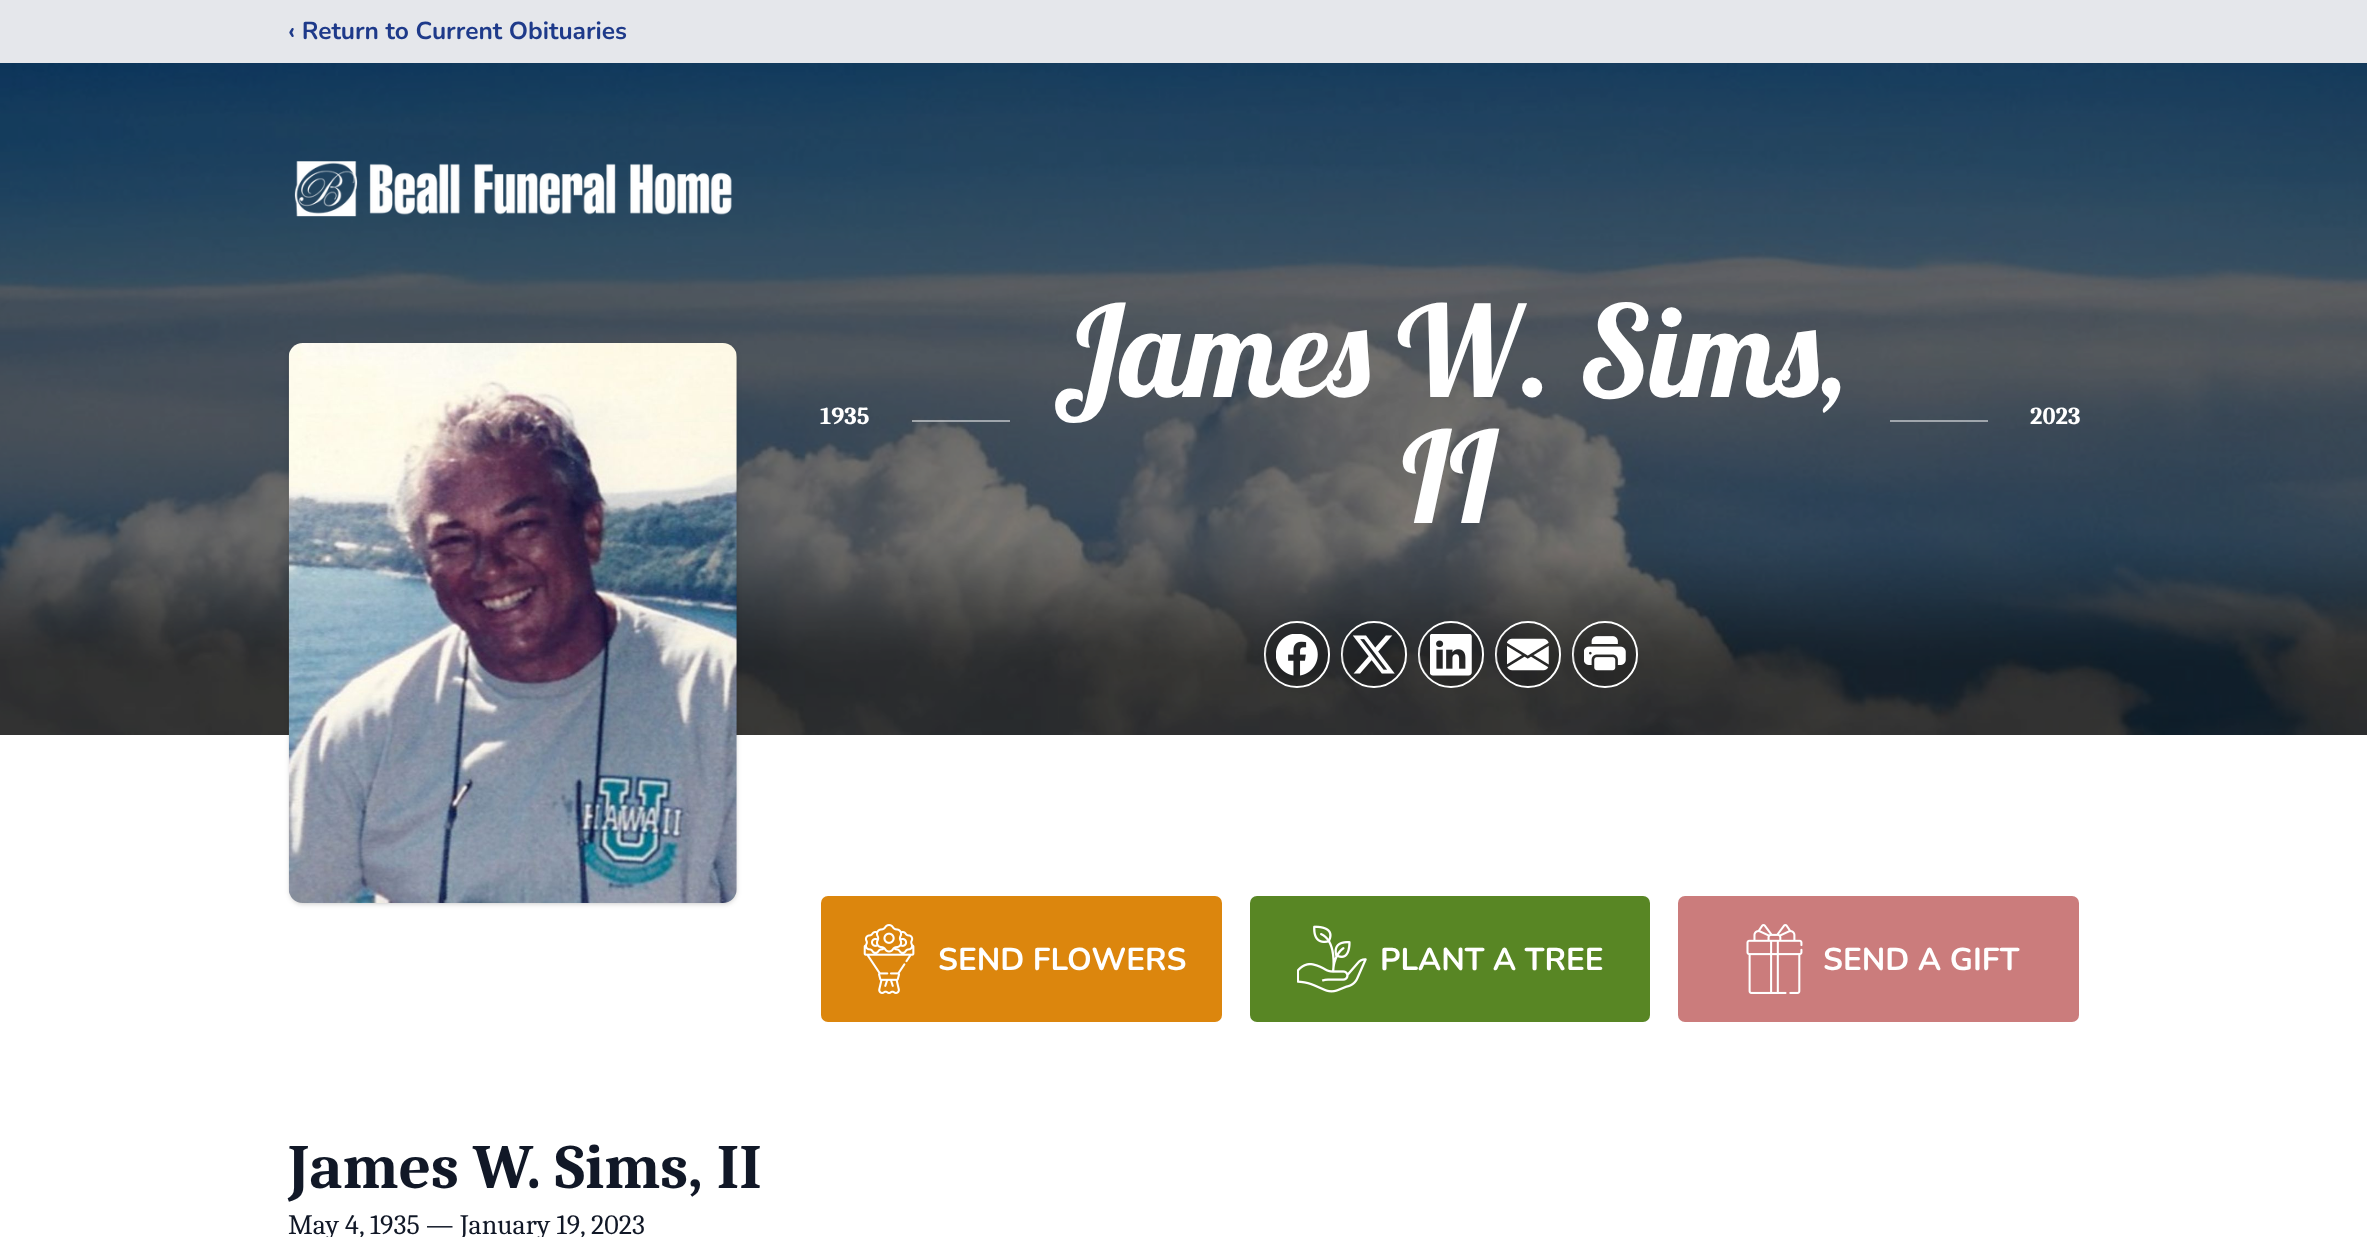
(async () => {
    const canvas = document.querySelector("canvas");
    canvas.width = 2367;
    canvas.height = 1237;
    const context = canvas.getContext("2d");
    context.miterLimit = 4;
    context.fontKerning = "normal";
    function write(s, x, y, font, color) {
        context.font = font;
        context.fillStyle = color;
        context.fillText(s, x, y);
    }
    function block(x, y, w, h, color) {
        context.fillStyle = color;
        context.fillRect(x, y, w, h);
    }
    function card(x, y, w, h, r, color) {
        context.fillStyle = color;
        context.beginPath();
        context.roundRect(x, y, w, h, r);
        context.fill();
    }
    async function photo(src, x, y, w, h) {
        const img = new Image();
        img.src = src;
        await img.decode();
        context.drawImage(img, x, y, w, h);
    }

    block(0, 0, 2367, 1237, "rgb(255, 255, 255)");
    block(0, 0, 2367, 63, "rgb(229, 231, 235)");
    write("‹ Return to Current Obituaries", 288, 39, "bold 24.5px Nunito", "rgb(30, 58, 138)");
    await photo("media/1.png", 0, 63, 2367, 672);
    await photo("media/2.png", 294, 161, 438, 56);
    context.fillStyle = "rgba(0, 0, 0, 0.1)";
    context.filter = "blur(2px)";
    context.beginPath();
    context.roundRect(291, 347, 444, 556, 12);
    context.fill();
    context.filter = "none";
    context.filter = "blur(2.5px)";
    context.beginPath();
    context.roundRect(289, 345, 448, 560, 14);
    context.fill();
    context.filter = "none";
    await photo("media/3.png", 288, 343, 449, 560);
    write("1935", 820, 424, "bold 24.5px Caladea", "rgb(255, 255, 255)");
    block(912, 420, 98, 2, "rgba(255, 255, 255, 0.5)");
    write("James W. Sims,", 1053, 397, "126px Lobster", "rgb(255, 255, 255)");
    write("II", 1402, 523, "126px Lobster", "rgb(255, 255, 255)");
    block(1890, 420, 98, 2, "rgba(255, 255, 255, 0.5)");
    write("2023", 2030, 424, "bold 24.5px Caladea", "rgb(255, 255, 255)");
    context.beginPath();
    context.roundRect(1265, 622, 64, 65, 32);
    context.strokeStyle = "rgb(255, 255, 255)";
    context.lineWidth = 2;
    context.stroke();
    context.fillStyle = "rgba(0, 0, 0, 0.2)";
    context.beginPath();
    context.arc(1296.5, 654.5, 31.5, 0, Math.PI * 2);
    context.fill();
    await photo("media/4.png", 1276, 634, 42, 42);
    context.beginPath();
    context.roundRect(1342, 622, 64, 65, 32);
    context.stroke();
    context.beginPath();
    context.arc(1373.5, 654.5, 31.5, 0, Math.PI * 2);
    context.fill();
    await photo("media/5.png", 1353, 635, 42, 39);
    context.beginPath();
    context.roundRect(1419, 622, 64, 65, 32);
    context.stroke();
    context.beginPath();
    context.arc(1450.5, 654.5, 31.5, 0, Math.PI * 2);
    context.fill();
    await photo("media/6.png", 1430, 634, 42, 42);
    context.beginPath();
    context.roundRect(1496, 622, 64, 65, 32);
    context.stroke();
    context.beginPath();
    context.arc(1527.5, 654.5, 31.5, 0, Math.PI * 2);
    context.fill();
    await photo("media/7.png", 1507, 638, 42, 33);
    context.beginPath();
    context.roundRect(1573, 622, 64, 65, 32);
    context.stroke();
    context.beginPath();
    context.arc(1604.5, 654.5, 31.5, 0, Math.PI * 2);
    context.fill();
    await photo("media/8.png", 1584, 636, 42, 35);
    card(821, 896, 401, 126, 7, "rgb(220, 134, 13)");
    await photo("media/9.png", 863, 924, 52, 70);
    write("SEND FLOWERS", 938, 970, "bold 31.5px Nunito", "rgb(255, 255, 255)");
    card(1250, 896, 400, 126, 7, "rgb(88, 134, 36)");
    await photo("media/10.png", 1297, 925, 70, 68);
    write("PLANT A TREE", 1380, 970, "bold 31.5px Nunito", "rgb(255, 255, 255)");
    card(1678, 896, 401, 126, 7, "rgb(203, 124, 124)");
    await photo("media/11.png", 1746, 924, 57, 70);
    write("SEND A GIFT", 1823, 970, "bold 31.5px Nunito", "rgb(255, 255, 255)");
    write("James W. Sims, II", 288, 1188, "bold 63px Caladea", "rgb(17, 24, 39)");
    write("May 4, 1935 — January 19, 2023", 288, 1234, "28px Caladea", "rgb(17, 24, 39)");
})();
